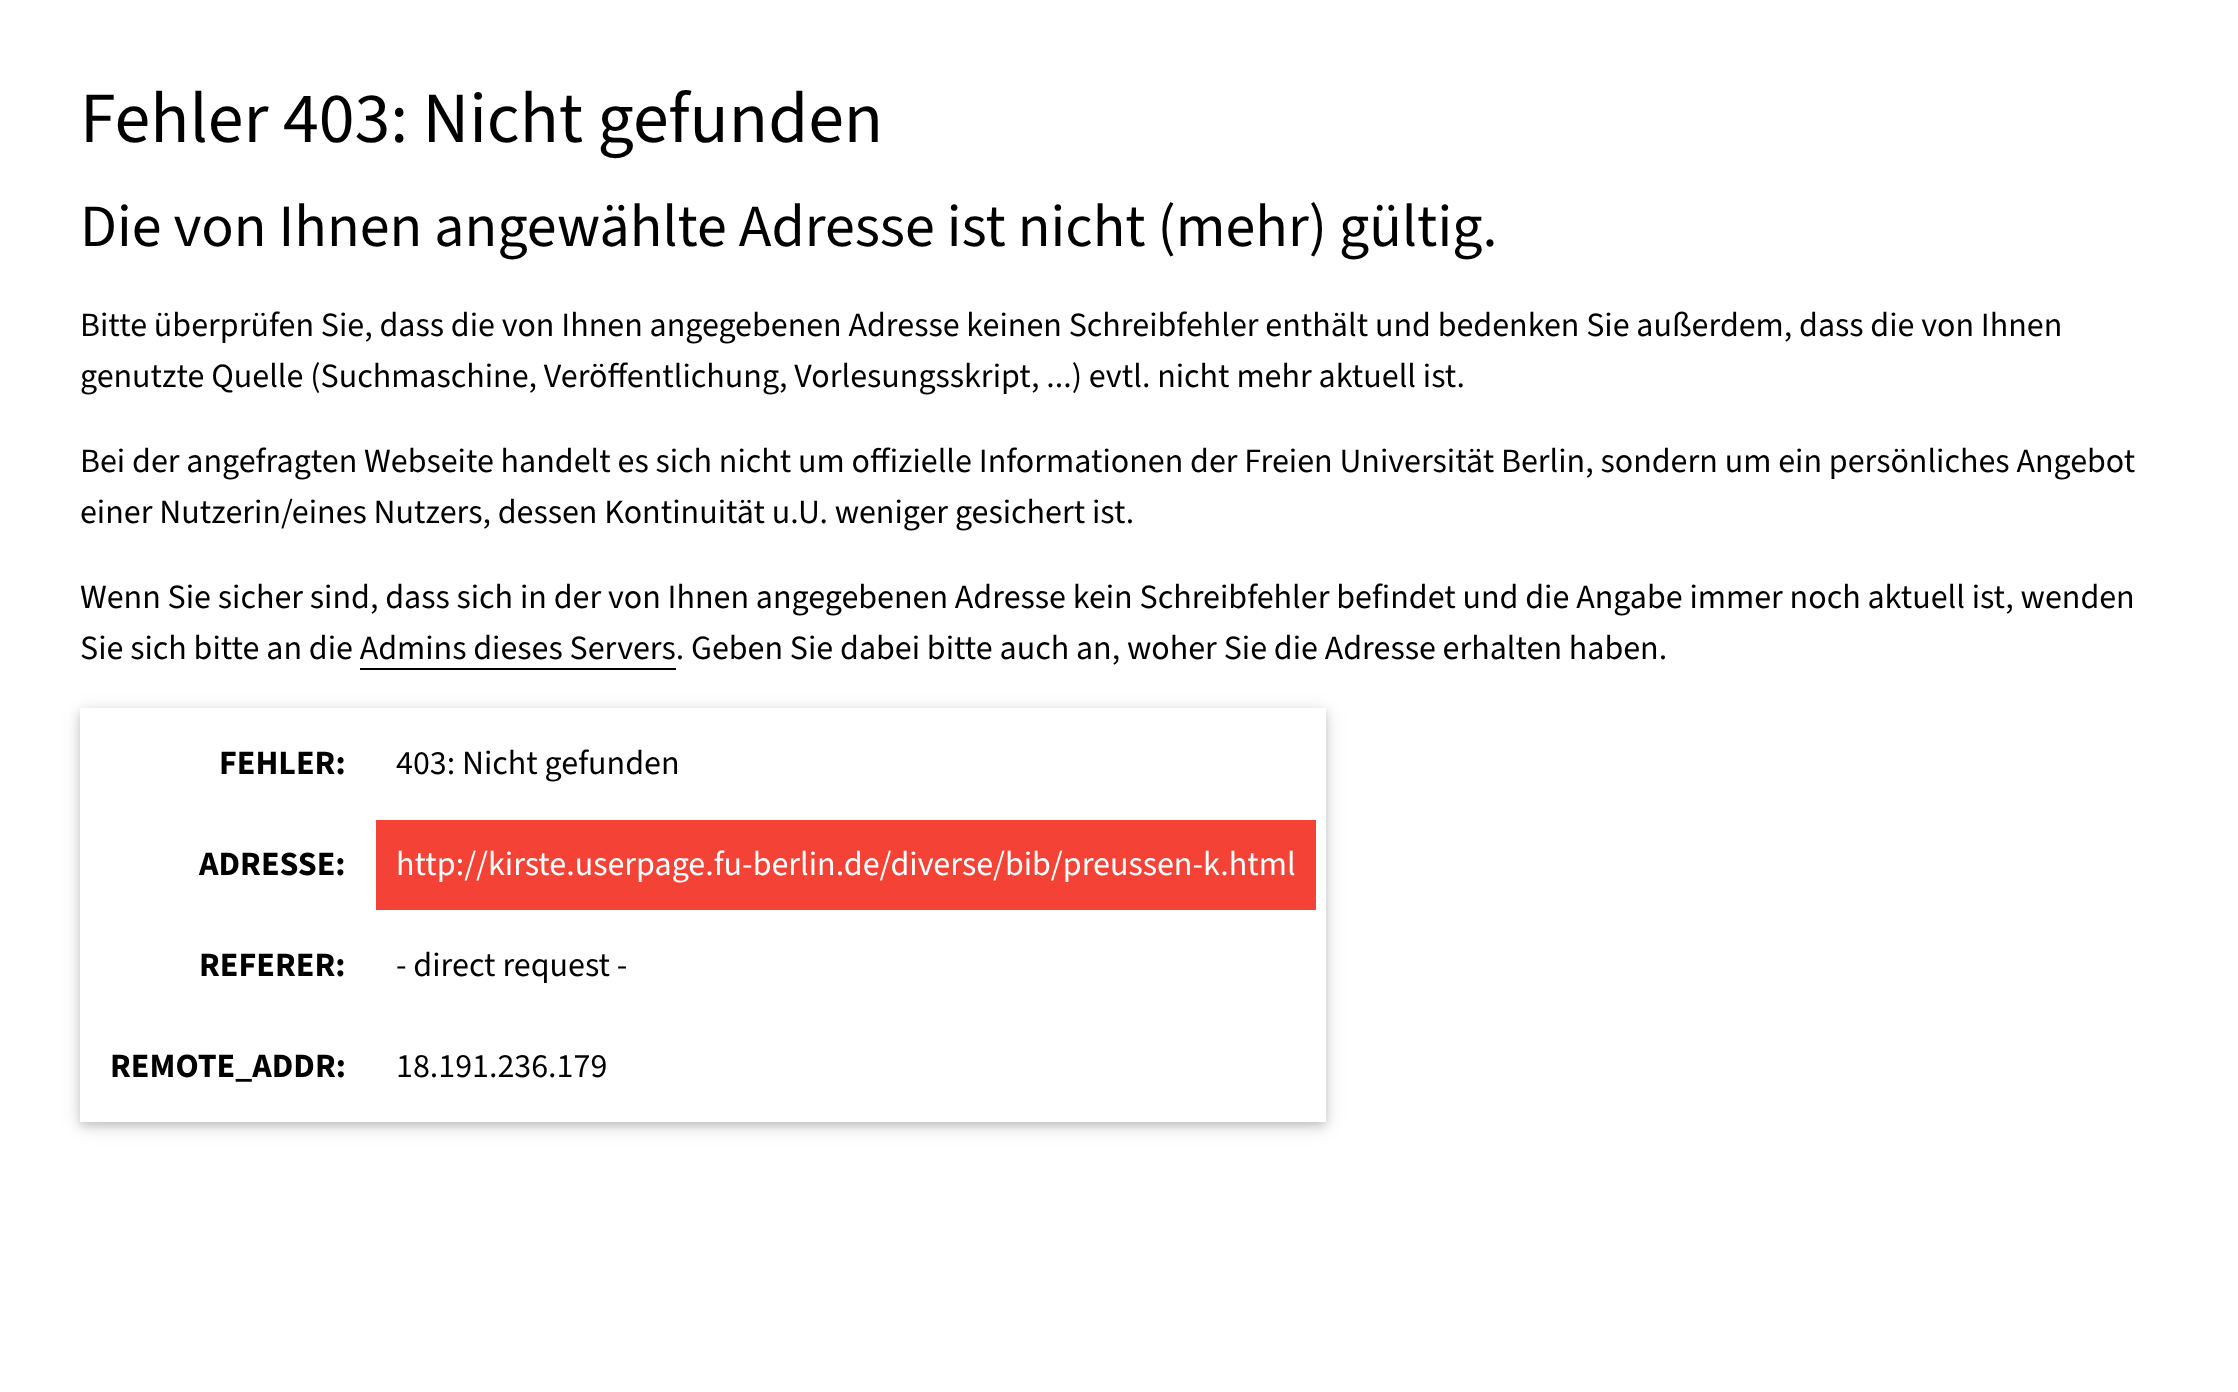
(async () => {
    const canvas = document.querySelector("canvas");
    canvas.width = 2238;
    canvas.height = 1392;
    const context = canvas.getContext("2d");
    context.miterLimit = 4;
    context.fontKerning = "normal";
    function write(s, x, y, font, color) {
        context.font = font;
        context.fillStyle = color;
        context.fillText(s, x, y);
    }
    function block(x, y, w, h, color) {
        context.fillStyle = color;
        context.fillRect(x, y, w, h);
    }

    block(0, 0, 2238, 1392, "rgb(255, 255, 255)");
    write("Fehler 403: Nicht gefunden", 80, 142, "72px 'Source Sans 3'", "rgb(0, 0, 0)");
    write("Die von Ihnen angewählte Adresse ist nicht (mehr) gültig.", 80, 246, "60px 'Source Sans 3'", "rgb(0, 0, 0)");
    write("Bitte überprüfen Sie, dass die von Ihnen angegebenen Adresse keinen Schreibfehler enthält und bedenken Sie außerdem, dass die von Ihnen", 80, 336, "34px 'Source Sans 3'", "rgb(0, 0, 0)");
    write("genutzte Quelle (Suchmaschine, Veröffentlichung, Vorlesungsskript, ...) evtl. nicht mehr aktuell ist.", 80, 387, "34px 'Source Sans 3'", "rgb(0, 0, 0)");
    write("Bei der angefragten Webseite handelt es sich nicht um offizielle Informationen der Freien Universität Berlin, sondern um ein persönliches Angebot", 80, 472, "34px 'Source Sans 3'", "rgb(0, 0, 0)");
    write("einer Nutzerin/eines Nutzers, dessen Kontinuität u.U. weniger gesichert ist.", 80, 523, "34px 'Source Sans 3'", "rgb(0, 0, 0)");
    write("Wenn Sie sicher sind, dass sich in der von Ihnen angegebenen Adresse kein Schreibfehler befindet und die Angabe immer noch aktuell ist, wenden", 80, 608, "34px 'Source Sans 3'", "rgb(0, 0, 0)");
    write("Sie sich bitte an die Admins dieses Servers. Geben Sie dabei bitte auch an, woher Sie die Adresse erhalten haben.", 80, 659, "34px 'Source Sans 3'", "rgb(0, 0, 0)");
    block(360, 668, 316, 2, "rgb(0, 0, 0)");
    context.save();
    context.beginPath();
    context.moveTo(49, 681);
    context.lineTo(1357, 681);
    context.lineTo(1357, 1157);
    context.lineTo(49, 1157);
    context.closePath();
    context.moveTo(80, 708);
    context.lineTo(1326, 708);
    context.lineTo(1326, 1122);
    context.lineTo(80, 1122);
    context.closePath();
    context.clip("evenodd");
    context.fillStyle = "rgba(0, 0, 0, 0.12)";
    context.filter = "blur(10px)";
    context.beginPath();
    context.rect(80, 712, 1246, 414);
    context.fill();
    context.filter = "none";
    context.restore();
    context.save();
    context.beginPath();
    context.moveTo(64, 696);
    context.lineTo(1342, 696);
    context.lineTo(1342, 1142);
    context.lineTo(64, 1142);
    context.closePath();
    context.moveTo(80, 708);
    context.lineTo(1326, 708);
    context.lineTo(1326, 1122);
    context.lineTo(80, 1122);
    context.closePath();
    context.clip("evenodd");
    context.fillStyle = "rgba(0, 0, 0, 0.16)";
    context.filter = "blur(5px)";
    context.beginPath();
    context.rect(80, 712, 1246, 414);
    context.fill();
    context.filter = "none";
    context.restore();
    write("FEHLER:", 219, 774, "bold 34px 'Source Sans 3'", "rgb(0, 0, 0)");
    write("403: Nicht gefunden", 396, 774, "34px 'Source Sans 3'", "rgb(0, 0, 0)");
    write("ADRESSE:", 199, 875, "bold 34px 'Source Sans 3'", "rgb(0, 0, 0)");
    block(376, 820, 940, 90, "rgb(244, 67, 54)");
    write("http://kirste.userpage.fu-berlin.de/diverse/bib/preussen-k.html", 396, 875, "34px 'Source Sans 3'", "rgb(255, 255, 255)");
    write("REFERER:", 199, 976, "bold 34px 'Source Sans 3'", "rgb(0, 0, 0)");
    write("- direct request -", 396, 976, "34px 'Source Sans 3'", "rgb(0, 0, 0)");
    write("REMOTE_ADDR:", 110, 1077, "bold 34px 'Source Sans 3'", "rgb(0, 0, 0)");
    write("18.191.236.179", 396, 1077, "34px 'Source Sans 3'", "rgb(0, 0, 0)");
})();
